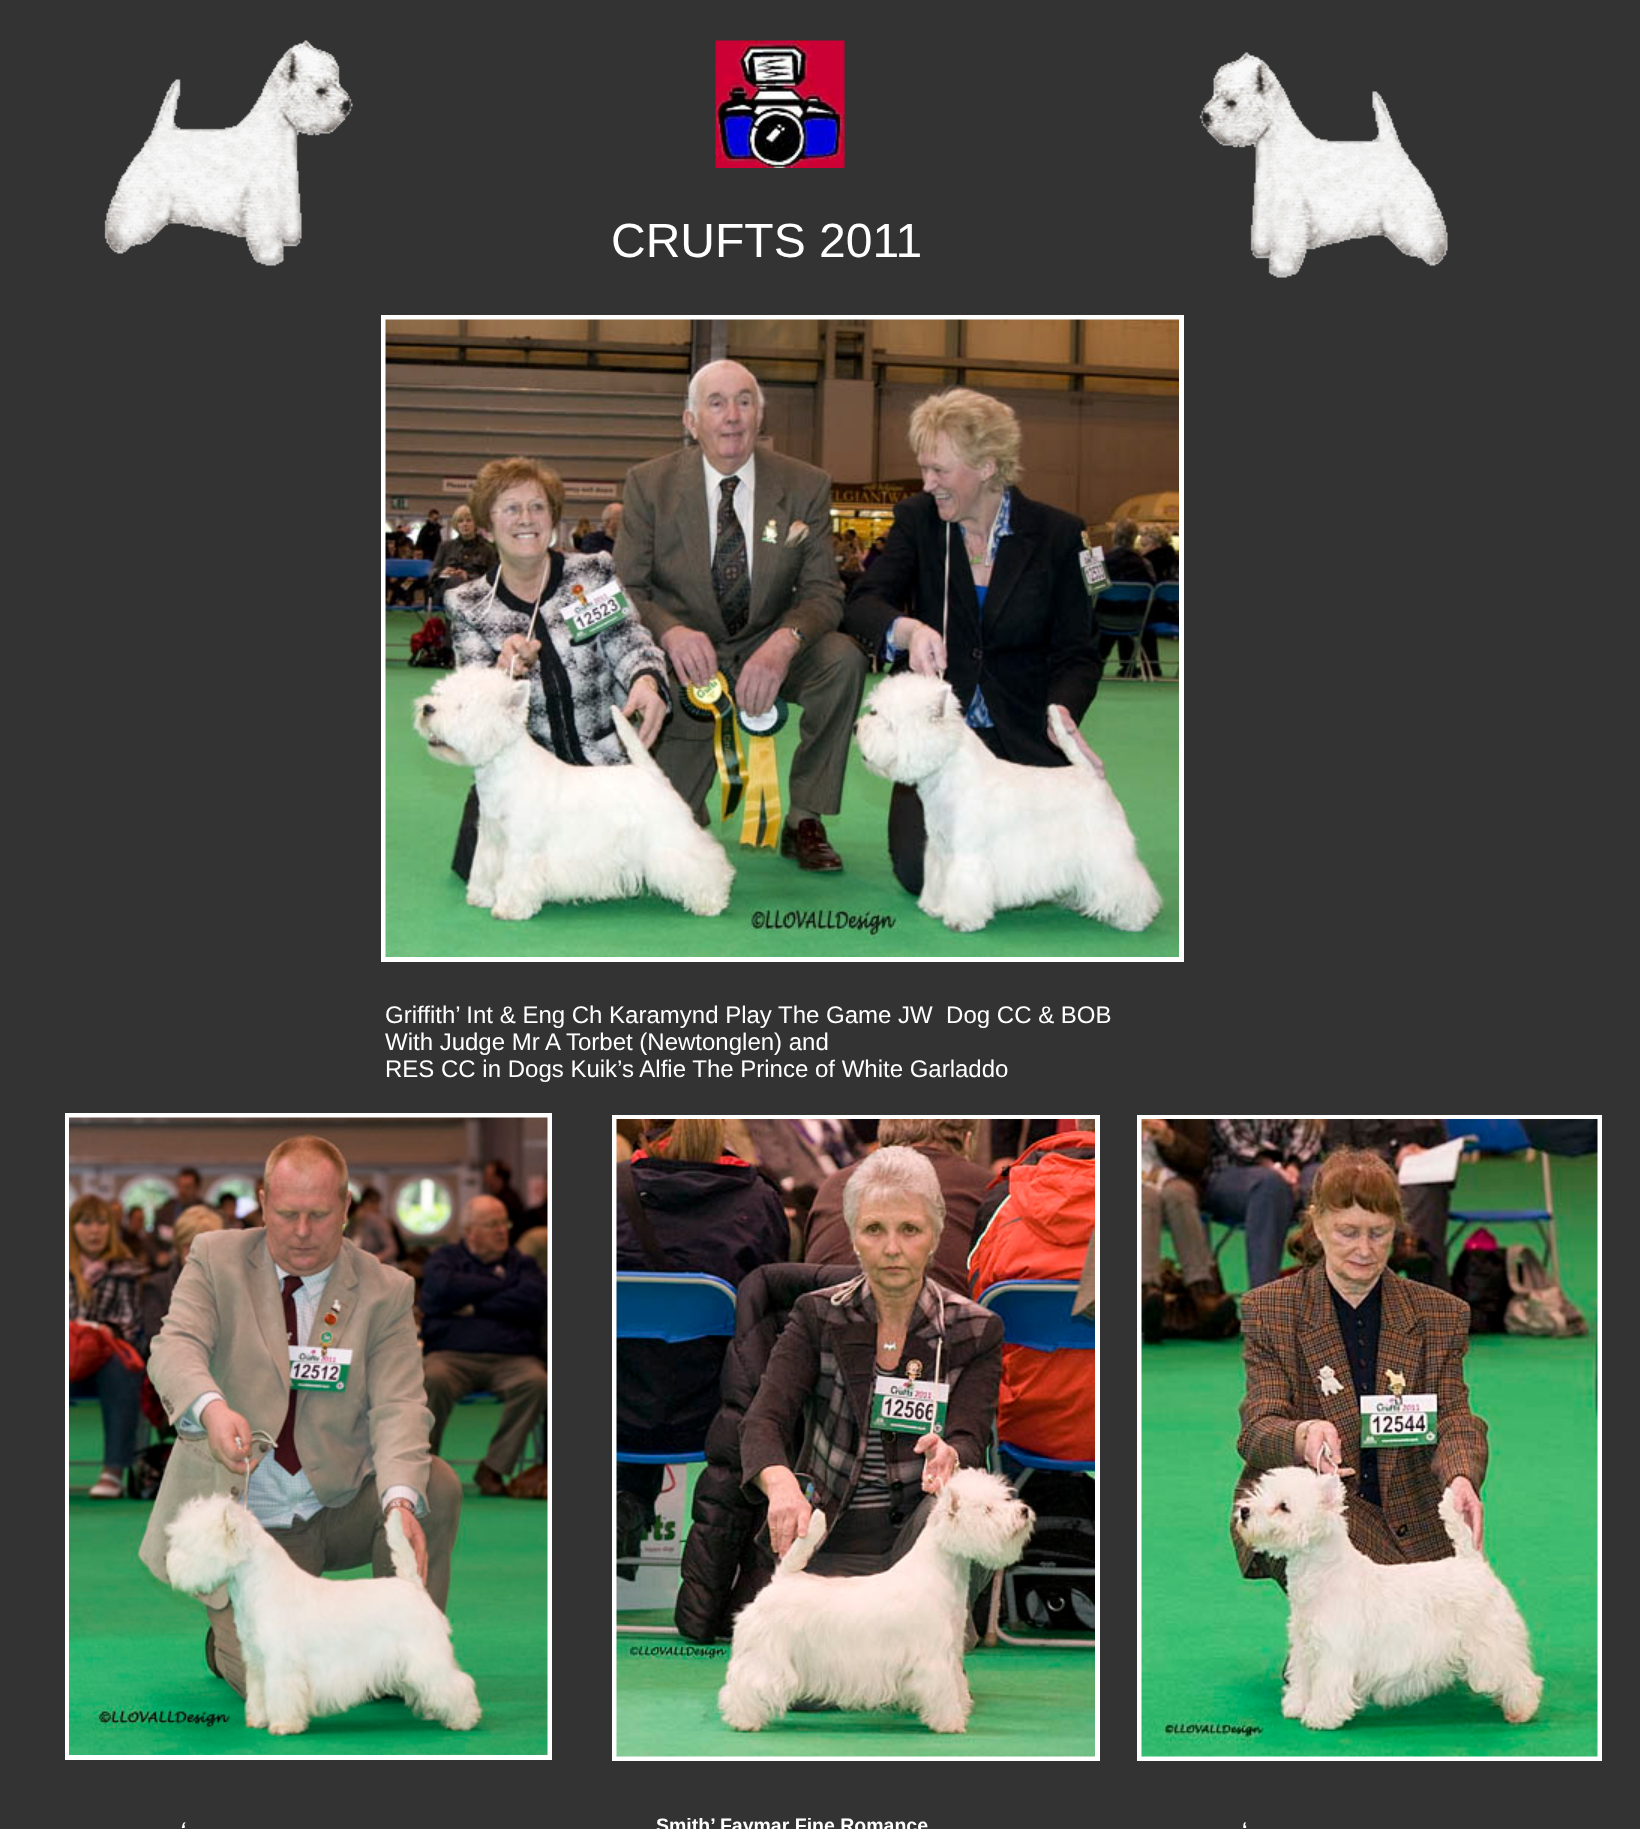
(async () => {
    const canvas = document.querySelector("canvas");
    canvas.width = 1640;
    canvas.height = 1829;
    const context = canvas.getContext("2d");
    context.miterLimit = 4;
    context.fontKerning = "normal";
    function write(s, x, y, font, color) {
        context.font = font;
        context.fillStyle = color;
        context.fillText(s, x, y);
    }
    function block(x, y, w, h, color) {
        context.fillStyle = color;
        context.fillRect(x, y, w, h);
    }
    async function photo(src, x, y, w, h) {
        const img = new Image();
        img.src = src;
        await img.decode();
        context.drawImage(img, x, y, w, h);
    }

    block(0, 0, 1640, 1829, "rgb(51, 51, 51)");
    await photo("media/1.png", 104, 40, 249, 226);
    await photo("media/2.png", 715, 40, 130, 128);
    write("CRUFTS 2011", 611, 257, "48px Liberation Sans", "rgb(255, 255, 255)");
    context.strokeStyle = "rgb(255, 255, 255)";
    context.lineWidth = 5;
    context.strokeRect(383.5, 317.5, 798, 642);
    await photo("media/3.png", 385, 319, 794, 638);
    await photo("media/4.png", 1199, 52, 249, 226);
    write("Griffith’ Int & Eng Ch Karamynd Play The Game JW  Dog CC & BOB", 385, 1023, "24px Liberation Sans", "rgb(255, 255, 255)");
    write("With Judge Mr A Torbet (Newtonglen) and", 385, 1050, "24px Liberation Sans", "rgb(255, 255, 255)");
    write("RES CC in Dogs Kuik’s Alfie The Prince of White Garladdo", 385, 1077, "24px Liberation Sans", "rgb(255, 255, 255)");
    context.strokeRect(67.5, 1115.5, 482, 642);
    await photo("media/5.png", 69, 1117, 479, 638);
    write("‘", 180, 1836, "italic bold 19.5px Liberation Sans", "rgb(255, 255, 255)");
    context.strokeRect(614.5, 1117.5, 483, 641);
    await photo("media/6.png", 616, 1119, 479, 638);
    write("Smith’ Faymar Fine Romance", 656, 1832, "bold 19.5px Liberation Sans", "rgb(255, 255, 255)");
    context.strokeRect(1139.5, 1117.5, 460, 641);
    await photo("media/7.png", 1141, 1119, 457, 638);
    write("‘", 1242, 1836, "bold 19.5px Liberation Sans", "rgb(255, 255, 255)");
})();
